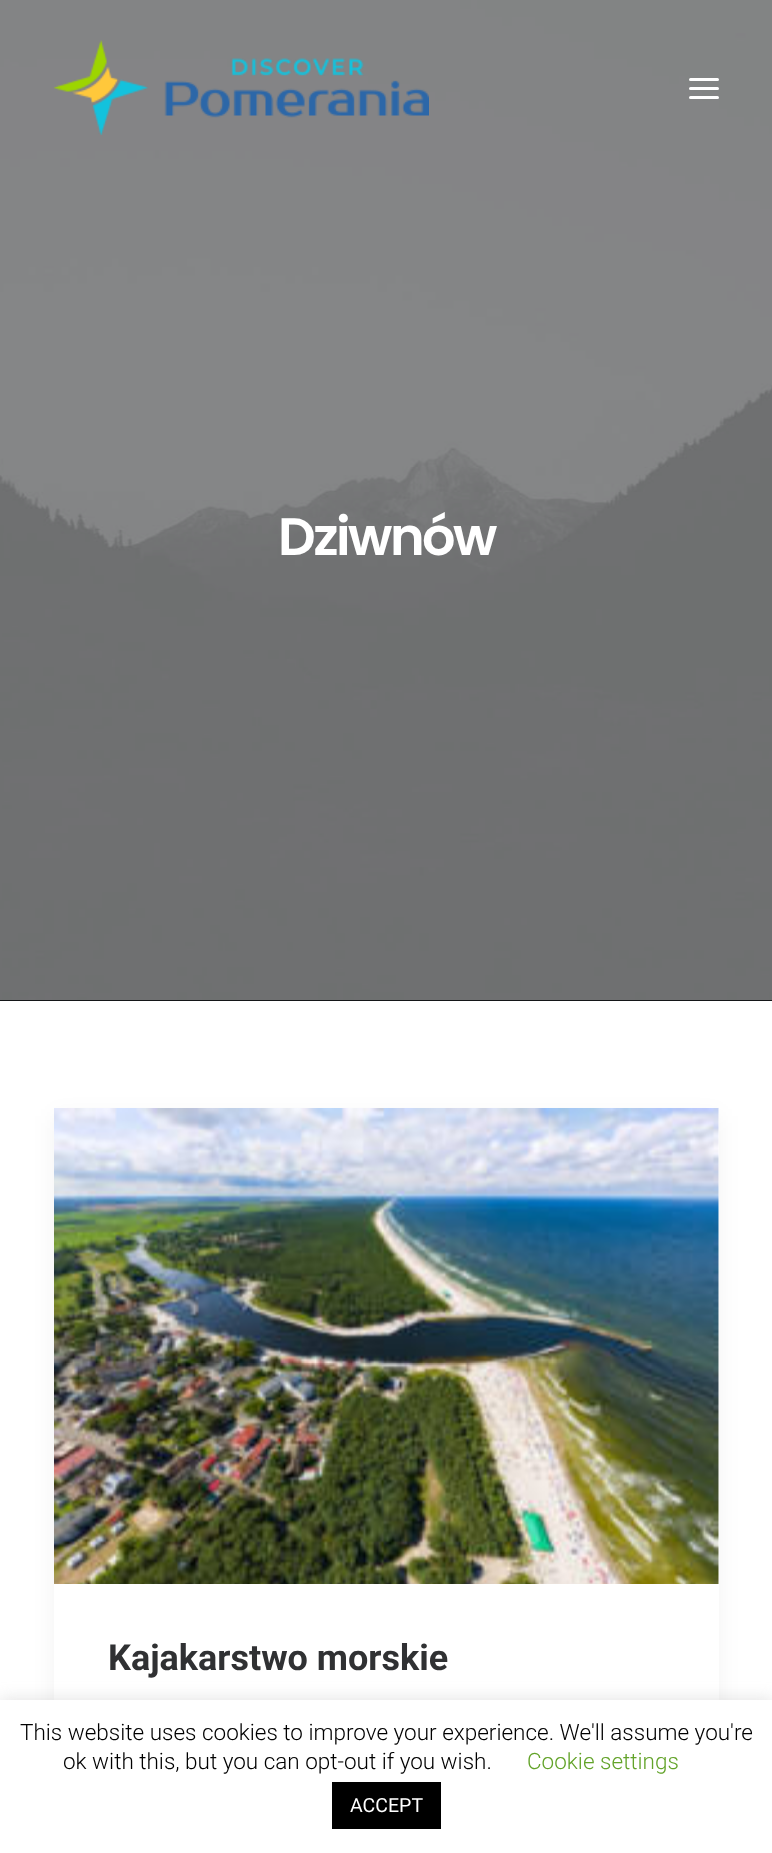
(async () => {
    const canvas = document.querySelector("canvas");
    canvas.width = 772;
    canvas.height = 1853;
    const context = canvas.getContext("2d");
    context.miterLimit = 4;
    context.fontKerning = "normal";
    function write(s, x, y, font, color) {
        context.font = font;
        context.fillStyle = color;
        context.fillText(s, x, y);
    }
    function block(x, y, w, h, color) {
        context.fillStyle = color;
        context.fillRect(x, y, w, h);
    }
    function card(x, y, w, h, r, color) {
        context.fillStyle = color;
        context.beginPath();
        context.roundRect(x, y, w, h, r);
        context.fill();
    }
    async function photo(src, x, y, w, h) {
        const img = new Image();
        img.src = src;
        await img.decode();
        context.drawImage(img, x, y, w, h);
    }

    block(0, 0, 772, 1853, "rgb(20, 22, 24)");
    await photo("media/2.png", 0, 0, 772, 1000);
    await photo("media/1.png", 54, 40, 375, 95);
    card(689, 87, 30, 3, 1.5, "rgb(255, 255, 255)");
    card(689, 78, 30, 3, 1.5, "rgb(255, 255, 255)");
    card(689, 96, 30, 3, 1.5, "rgb(255, 255, 255)");
    context.letterSpacing = "-2.5px";
    write("Dziwnów", 278, 555, "600 52.5px Poppins", "rgb(255, 255, 255)");
    block(0, 1001, 772, 699, "rgb(255, 255, 255)");
    context.fillStyle = "rgba(0, 0, 0, 0.05)";
    context.filter = "blur(11px)";
    context.beginPath();
    context.rect(54, 1116, 665, 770);
    context.fill();
    context.filter = "none";
    block(54, 1109, 665, 591, "rgb(255, 255, 255)");
    await photo("media/3.png", 54, 1108, 665, 476);
    context.letterSpacing = "0px";
    write("Kajakarstwo morskie", 108, 1670, "bold 36px Roboto", "rgb(48, 49, 51)");
    context.fillStyle = "rgba(172, 171, 171, 0.3)";
    context.filter = "blur(7.5px)";
    context.beginPath();
    context.rect(0, 1698, 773, 155);
    context.fill();
    context.filter = "none";
    block(0, 1700, 772, 153, "rgb(255, 255, 255)");
    write("This website uses cookies to improve your experience. We'll assume you're", 20, 1740, "300 22.5px Roboto", "rgb(0, 0, 0)");
    write("ok with this, but you can opt-out if you wish.", 63, 1769, "300 22.5px Roboto", "rgb(0, 0, 0)");
    write("Cookie settings", 527, 1769, "300 22.5px Roboto", "rgb(98, 163, 41)");
    block(332, 1782, 109, 47, "rgb(0, 0, 0)");
    write("ACCEPT", 350, 1812, "19.5px Roboto", "rgb(255, 255, 255)");
})();
